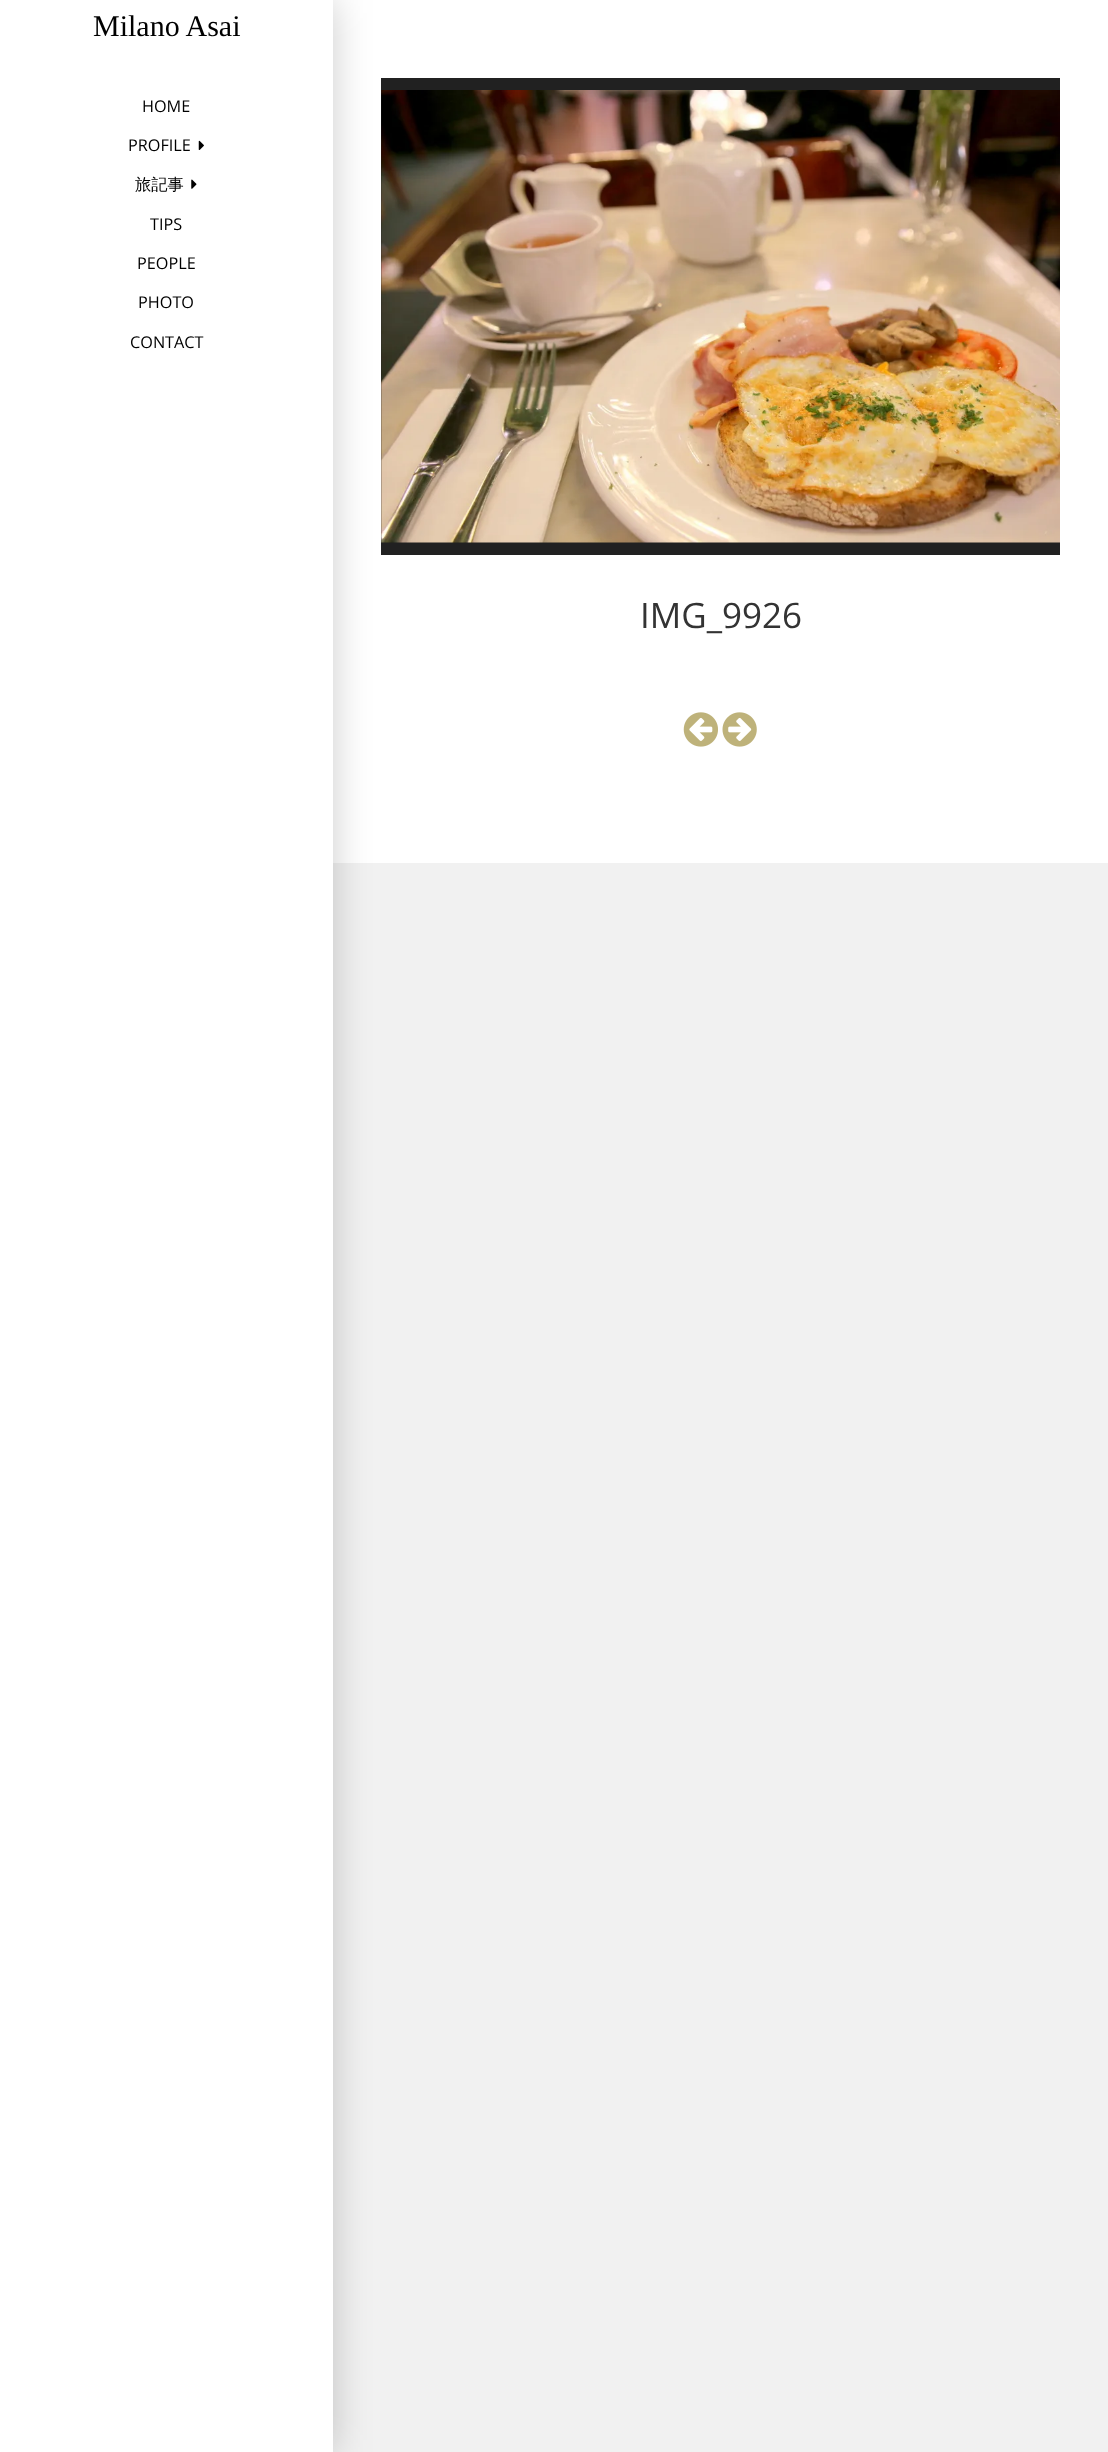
(async () => {
    const canvas = document.querySelector("canvas");
    canvas.width = 1108;
    canvas.height = 2452;
    const context = canvas.getContext("2d");
    context.miterLimit = 4;
    context.fontKerning = "normal";
    function write(s, x, y, font, color) {
        context.font = font;
        context.fillStyle = color;
        context.fillText(s, x, y);
    }
    function block(x, y, w, h, color) {
        context.fillStyle = color;
        context.fillRect(x, y, w, h);
    }
    async function photo(src, x, y, w, h) {
        const img = new Image();
        img.src = src;
        await img.decode();
        context.drawImage(img, x, y, w, h);
    }

    block(0, 0, 1108, 2452, "rgb(241, 241, 241)");
    block(333, 0, 775, 863, "rgb(255, 255, 255)");
    block(381, 78, 679, 477, "rgb(33, 33, 33)");
    await photo("media/3.png", 381, 90, 679, 453);
    context.fillStyle = "rgba(0, 0, 0, 0.2)";
    context.filter = "blur(19px)";
    context.beginPath();
    context.rect(0, 0, 333, 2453);
    context.fill();
    context.filter = "none";
    block(0, 0, 333, 2452, "rgb(255, 255, 255)");
    write("Milano Asai", 93, 36, "30px Liberation Serif", "rgb(0, 0, 0)");
    write("HOME", 142, 112, "16.25px Open Sans", "rgb(0, 0, 0)");
    write("PROFILE", 128, 151, "16.25px Open Sans", "rgb(0, 0, 0)");
    await photo("media/1.png", 198, 140, 6, 10);
    write("旅記事", 135, 190, "500 16.25px WenQuanYi Zen Hei", "rgb(0, 0, 0)");
    await photo("media/2.png", 191, 179, 6, 10);
    write("TIPS", 150, 230, "16.25px Open Sans", "rgb(0, 0, 0)");
    write("PEOPLE", 137, 269, "16.25px Open Sans", "rgb(0, 0, 0)");
    write("PHOTO", 138, 308, "16.25px Open Sans", "rgb(0, 0, 0)");
    write("CONTACT", 130, 348, "16.25px Open Sans", "rgb(0, 0, 0)");
    write("IMG_9926", 640, 628, "35px Open Sans", "rgb(51, 51, 51)");
    await photo("media/4.png", 683, 712, 35, 35);
    await photo("media/5.png", 722, 712, 35, 35);
})();
